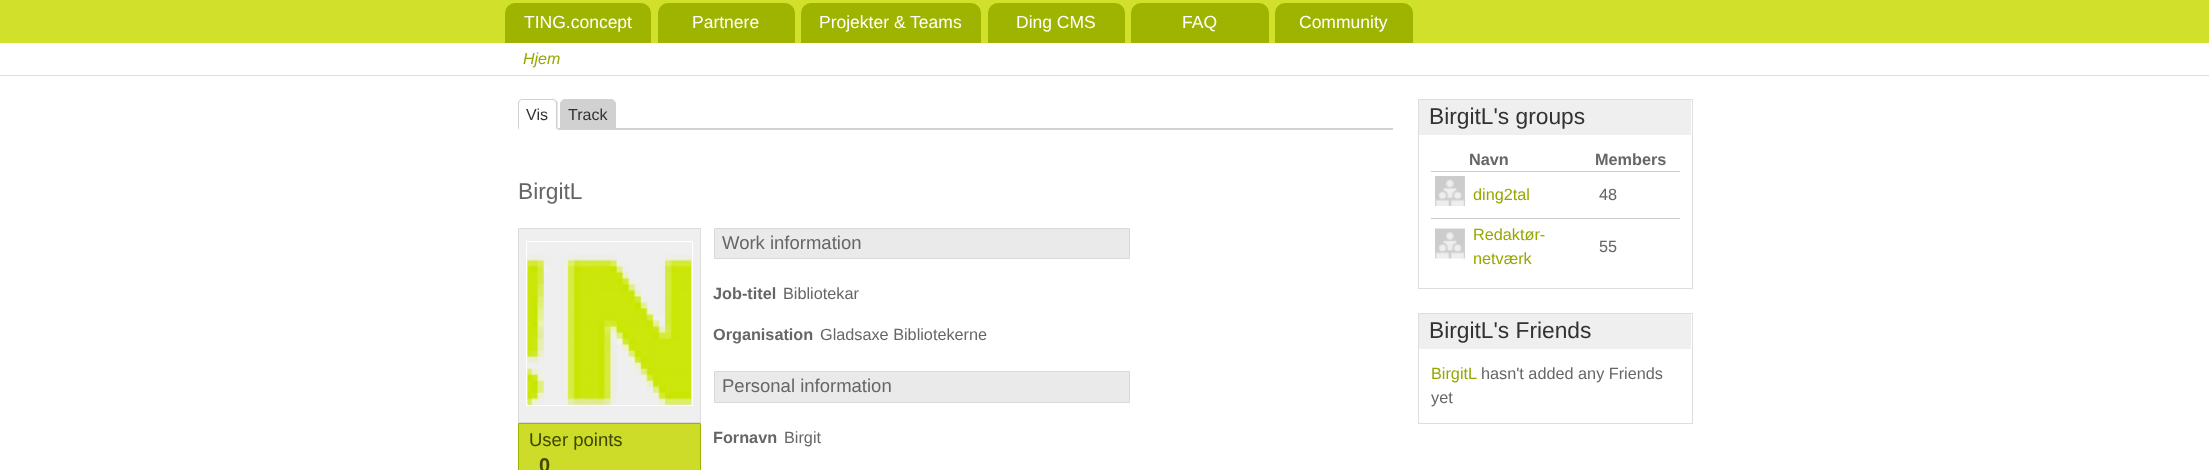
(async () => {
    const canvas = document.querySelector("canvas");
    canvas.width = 2209;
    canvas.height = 470;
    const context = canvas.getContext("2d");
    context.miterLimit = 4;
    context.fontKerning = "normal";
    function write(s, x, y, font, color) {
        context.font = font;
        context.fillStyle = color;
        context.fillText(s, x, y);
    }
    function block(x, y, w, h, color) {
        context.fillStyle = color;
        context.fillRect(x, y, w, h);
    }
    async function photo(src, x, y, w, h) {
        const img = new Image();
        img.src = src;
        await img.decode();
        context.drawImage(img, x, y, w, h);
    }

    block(0, 0, 2209, 470, "rgb(255, 255, 255)");
    block(0, 0, 2209, 43, "rgb(209, 224, 43)");
    block(0, 41, 2209, 1, "rgb(209, 224, 49)");
    context.fillStyle = "rgb(159, 180, 0)";
    context.beginPath();
    context.roundRect(505, 3, 146, 40, [10, 10, 0, 0]);
    context.fill();
    write("TING.concept", 524, 28, "17.5px Liberation Sans", "rgb(255, 255, 255)");
    context.fillStyle = "rgb(159, 180, 0)";
    context.beginPath();
    context.roundRect(658, 3, 137, 40, [10, 10, 0, 0]);
    context.fill();
    write("Partnere", 692, 28, "17.5px Liberation Sans", "rgb(255, 255, 255)");
    context.fillStyle = "rgb(159, 180, 0)";
    context.beginPath();
    context.roundRect(801, 3, 180, 40, [10, 10, 0, 0]);
    context.fill();
    write("Projekter & Teams", 819, 28, "17.5px Liberation Sans", "rgb(255, 255, 255)");
    context.fillStyle = "rgb(159, 180, 0)";
    context.beginPath();
    context.roundRect(988, 3, 137, 40, [10, 10, 0, 0]);
    context.fill();
    write("Ding CMS", 1016, 28, "17.5px Liberation Sans", "rgb(255, 255, 255)");
    context.fillStyle = "rgb(159, 180, 0)";
    context.beginPath();
    context.roundRect(1131, 3, 138, 40, [10, 10, 0, 0]);
    context.fill();
    write("FAQ", 1182, 28, "17.5px Liberation Sans", "rgb(255, 255, 255)");
    context.fillStyle = "rgb(159, 180, 0)";
    context.beginPath();
    context.roundRect(1275, 3, 138, 40, [10, 10, 0, 0]);
    context.fill();
    write("Community", 1299, 28, "17.5px Liberation Sans", "rgb(255, 255, 255)");
    block(0, 75, 2209, 1, "rgb(222, 222, 222)");
    write("Hjem", 523, 64, "italic 16px Liberation Sans", "rgb(151, 167, 0)");
    block(558, 128, 835, 2, "rgb(209, 209, 209)");
    context.beginPath();
    context.moveTo(522, 99);
    context.bezierCurveTo(521, 99, 520, 99.5, 519, 100.5);
    context.lineTo(520, 101);
    context.bezierCurveTo(520.5, 100.5, 521, 100, 522, 100);
    context.lineTo(552, 100);
    context.bezierCurveTo(553.5, 100, 554.5, 100.5, 555, 101);
    context.lineTo(556, 100.5);
    context.bezierCurveTo(555, 99.5, 553.5, 99, 552, 99);
    context.closePath();
    context.fill();
    context.beginPath();
    context.moveTo(556, 100.5);
    context.lineTo(557.5, 102);
    context.lineTo(557.5, 130);
    context.lineTo(556, 128.5);
    context.lineTo(556, 104);
    context.bezierCurveTo(556, 103, 555.5, 102, 555, 101);
    context.closePath();
    context.fill();
    context.fillStyle = "rgb(255, 255, 255)";
    context.beginPath();
    context.moveTo(557.5, 130);
    context.lineTo(556, 128.5);
    context.lineTo(556, 129);
    context.lineTo(519, 129);
    context.lineTo(519, 128.5);
    context.lineTo(518, 129.5);
    context.lineTo(518, 130);
    context.closePath();
    context.fill();
    context.fillStyle = "rgb(209, 209, 209)";
    context.beginPath();
    context.moveTo(519, 100.5);
    context.bezierCurveTo(518.5, 101.5, 518, 102.5, 518, 104);
    context.lineTo(518, 129.5);
    context.lineTo(519, 128.5);
    context.lineTo(519, 104);
    context.bezierCurveTo(519, 103, 519.5, 102, 520, 101);
    context.closePath();
    context.fill();
    write("Vis", 526, 120, "16px Liberation Sans", "rgb(50, 50, 50)");
    context.fillStyle = "rgb(209, 209, 209)";
    context.beginPath();
    context.roundRect(560.5, 99.5, 55, 30, [4.5, 4.5, 0, 0]);
    context.fill();
    context.strokeStyle = "rgb(209, 209, 209)";
    context.stroke();
    write("Track", 568, 120, "16px Liberation Sans", "rgb(50, 50, 50)");
    write("BirgitL", 518, 199, "22.75px Liberation Sans", "rgb(102, 102, 102)");
    context.fillStyle = "rgb(234, 234, 234)";
    context.beginPath();
    context.rect(714.5, 228.5, 415, 30);
    context.fill();
    context.strokeStyle = "rgb(216, 216, 216)";
    context.stroke();
    write("Work information", 722, 249, "18.5px Liberation Sans", "rgb(102, 102, 102)");
    write("Job-titel", 713, 299, "bold 16.25px Liberation Sans", "rgb(102, 102, 102)");
    write("Bibliotekar", 783, 299, "16.25px Liberation Sans", "rgb(102, 102, 102)");
    write("Organisation", 713, 340, "bold 16.25px Liberation Sans", "rgb(102, 102, 102)");
    write("Gladsaxe Bibliotekerne", 820, 340, "16.25px Liberation Sans", "rgb(102, 102, 102)");
    context.fillStyle = "rgb(234, 234, 234)";
    context.beginPath();
    context.rect(714.5, 371.5, 415, 31);
    context.fill();
    context.stroke();
    write("Personal information", 722, 392, "18.5px Liberation Sans", "rgb(102, 102, 102)");
    write("Fornavn", 713, 443, "bold 16.25px Liberation Sans", "rgb(102, 102, 102)");
    write("Birgit", 784, 443, "16.25px Liberation Sans", "rgb(102, 102, 102)");
    context.fillStyle = "rgb(239, 239, 239)";
    context.beginPath();
    context.rect(518.5, 228.5, 182, 194);
    context.fill();
    context.strokeStyle = "rgb(220, 220, 220)";
    context.stroke();
    context.strokeStyle = "rgb(255, 255, 255)";
    context.strokeRect(526.5, 241.5, 166, 164);
    await photo("media/1.png", 527, 254, 165, 151);
    context.fillStyle = "rgb(205, 220, 41)";
    context.beginPath();
    context.rect(518.5, 423.5, 182, 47);
    context.fill();
    context.strokeStyle = "rgb(159, 180, 0)";
    context.stroke();
    write("User points", 529, 446, "18.5px Liberation Sans", "rgb(65, 70, 0)");
    write("0", 539, 472, "bold 20px Liberation Sans", "rgb(65, 70, 0)");
    context.strokeStyle = "rgb(222, 222, 222)";
    context.strokeRect(1418.5, 99.5, 274, 189);
    block(1419, 100, 272, 35, "rgb(239, 239, 239)");
    write("BirgitL's groups", 1429, 124, "22.75px Liberation Sans", "rgb(50, 50, 50)");
    write("Navn", 1469, 165, "bold 16.25px Liberation Sans", "rgb(102, 102, 102)");
    write("Members", 1595, 165, "bold 16.25px Liberation Sans", "rgb(102, 102, 102)");
    block(1431, 171, 249, 1, "rgb(204, 204, 204)");
    block(1431, 218, 249, 1, "rgb(204, 204, 204)");
    await photo("media/2.png", 1435, 176, 30, 30);
    write("ding2tal", 1473, 200, "16.25px Liberation Sans", "rgb(151, 167, 0)");
    write("48", 1599, 200, "16.25px Liberation Sans", "rgb(102, 102, 102)");
    await photo("media/3.png", 1435, 228, 30, 31);
    write("Redaktør-", 1473, 240, "16.25px Liberation Sans", "rgb(151, 167, 0)");
    write("netværk", 1473, 264, "16.25px Liberation Sans", "rgb(151, 167, 0)");
    write("55", 1599, 252, "16.25px Liberation Sans", "rgb(102, 102, 102)");
    context.strokeRect(1418.5, 313.5, 274, 110);
    block(1419, 314, 272, 35, "rgb(239, 239, 239)");
    write("BirgitL's Friends", 1429, 338, "22.75px Liberation Sans", "rgb(50, 50, 50)");
    write("BirgitL", 1431, 379, "16.25px Liberation Sans", "rgb(151, 167, 0)");
    write("hasn't added any Friends", 1481, 379, "16.25px Liberation Sans", "rgb(102, 102, 102)");
    write("yet", 1431, 403, "16.25px Liberation Sans", "rgb(102, 102, 102)");
})();
